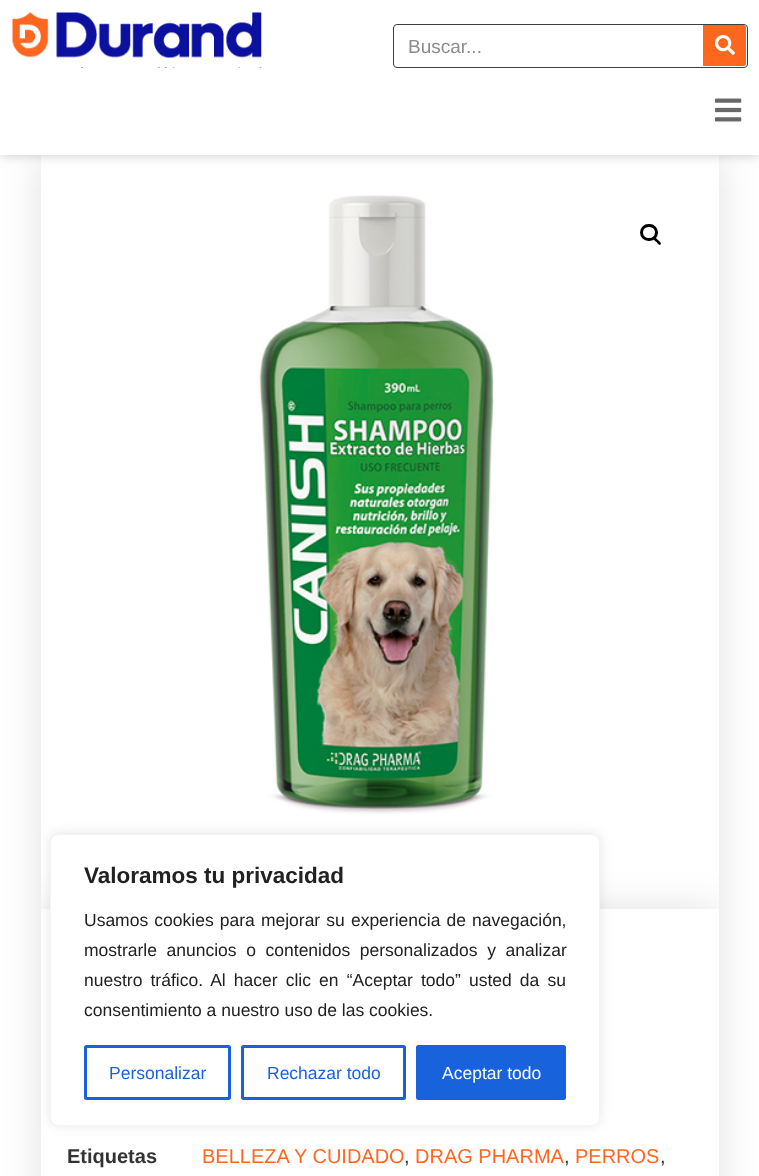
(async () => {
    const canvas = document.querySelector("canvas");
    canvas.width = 759;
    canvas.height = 1176;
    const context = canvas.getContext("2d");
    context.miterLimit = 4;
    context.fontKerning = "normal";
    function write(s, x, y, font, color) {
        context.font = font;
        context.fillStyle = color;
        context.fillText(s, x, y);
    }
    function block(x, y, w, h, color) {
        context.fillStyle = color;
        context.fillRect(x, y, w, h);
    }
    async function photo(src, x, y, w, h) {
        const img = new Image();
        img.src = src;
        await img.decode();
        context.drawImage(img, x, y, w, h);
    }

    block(0, 0, 759, 1176, "rgb(255, 255, 255)");
    context.fillStyle = "rgba(0, 0, 0, 0.12)";
    context.filter = "blur(19px)";
    context.beginPath();
    context.rect(41, 155, 678, 754);
    context.fill();
    context.filter = "none";
    block(41, 155, 678, 754, "rgb(255, 255, 255)");
    context.fillStyle = "rgba(0, 0, 0, 0.21)";
    context.filter = "blur(6px)";
    context.beginPath();
    context.rect(0, 0, 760, 155);
    context.fill();
    context.filter = "none";
    block(0, 0, 759, 155, "rgb(255, 255, 255)");
    await photo("media/1.png", 12, 12, 250, 56);
    context.beginPath();
    context.roundRect(393.5, 24.5, 354, 43, 3.5);
    context.strokeStyle = "rgb(63, 63, 63)";
    context.stroke();
    write("Buscar...", 408, 53, "19px Liberation Sans", "rgb(140, 140, 140)");
    context.fillStyle = "rgb(255, 103, 31)";
    context.beginPath();
    context.roundRect(703, 25, 43, 41, [0, 2.5, 2.5, 0]);
    context.fill();
    await photo("media/2.png", 715, 35, 20, 20);
    await photo("media/3.png", 715, 98, 27, 24);
    await photo("media/4.png", 259, 195, 235, 619);
    context.beginPath();
    context.roundRect(641.5, 225.5, 15, 14, 7);
    context.strokeStyle = "rgb(0, 0, 0)";
    context.lineWidth = 3;
    context.stroke();
    context.fillStyle = "rgb(0, 0, 0)";
    context.beginPath();
    context.moveTo(653.5, 237.5);
    context.bezierCurveTo(655, 236, 657.5, 239.5, 658, 240);
    context.bezierCurveTo(659, 241, 662, 243, 660.5, 244.5);
    context.bezierCurveTo(659.5, 246, 657, 243, 656.5, 242);
    context.bezierCurveTo(655.5, 241.5, 652.5, 239, 653.5, 237.5);
    context.closePath();
    context.fill();
    context.fillStyle = "rgba(0, 0, 0, 0.12)";
    context.filter = "blur(19px)";
    context.beginPath();
    context.rect(41, 909, 678, 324);
    context.fill();
    context.filter = "none";
    block(41, 909, 678, 267, "rgb(255, 255, 255)");
    write("Etiquetas", 67, 1163, "bold 20px Liberation Sans", "rgb(51, 51, 51)");
    write("BELLEZA Y CUIDADO", 202, 1163, "20px Liberation Sans", "rgb(255, 103, 31)");
    write(",", 404, 1163, "20px Liberation Sans", "rgb(51, 51, 51)");
    write("DRAG PHARMA", 415, 1163, "20px Liberation Sans", "rgb(255, 103, 31)");
    write(",", 564, 1163, "20px Liberation Sans", "rgb(51, 51, 51)");
    write("PERROS", 575, 1163, "20px Liberation Sans", "rgb(255, 103, 31)");
    write(",", 660, 1163, "20px Liberation Sans", "rgb(51, 51, 51)");
    context.fillStyle = "rgba(172, 171, 171, 0.3)";
    context.filter = "blur(6px)";
    context.beginPath();
    context.roundRect(50, 833, 550, 292, 8);
    context.fill();
    context.filter = "none";
    context.fillStyle = "rgb(255, 255, 255)";
    context.beginPath();
    context.roundRect(50.5, 834.5, 549, 291, 7.5);
    context.fill();
    context.strokeStyle = "rgb(244, 244, 244)";
    context.lineWidth = 1;
    context.stroke();
    write("Valoramos tu privacidad", 84, 883, "bold 22.5px Liberation Sans", "rgb(33, 33, 33)");
    context.wordSpacing = "1.25px";
    write("Usamos cookies para mejorar su experiencia de navegación,", 84, 926, "17.5px Liberation Sans", "rgb(33, 33, 33)");
    context.wordSpacing = "4.75px";
    write("mostrarle anuncios o contenidos personalizados y analizar", 84, 956, "17.5px Liberation Sans", "rgb(33, 33, 33)");
    context.wordSpacing = "3.25px";
    write("nuestro tráfico. Al hacer clic en “Aceptar todo” usted da su", 84, 986, "17.5px Liberation Sans", "rgb(33, 33, 33)");
    context.wordSpacing = "0px";
    write("consentimiento a nuestro uso de las cookies.", 84, 1016, "17.5px Liberation Sans", "rgb(33, 33, 33)");
    context.beginPath();
    context.roundRect(85.5, 1046.5, 144, 52, 1);
    context.strokeStyle = "rgb(24, 99, 220)";
    context.lineWidth = 3;
    context.stroke();
    write("Personalizar", 109, 1079, "17.5px Liberation Sans", "rgb(24, 99, 220)");
    context.beginPath();
    context.roundRect(242.5, 1046.5, 162, 52, 1);
    context.stroke();
    write("Rechazar todo", 267, 1079, "17.5px Liberation Sans", "rgb(24, 99, 220)");
    context.beginPath();
    context.roundRect(417.5, 1046.5, 147, 52, 1);
    context.fill();
    context.stroke();
    write("Aceptar todo", 442, 1079, "17.5px Liberation Sans", "rgb(255, 255, 255)");
})();
